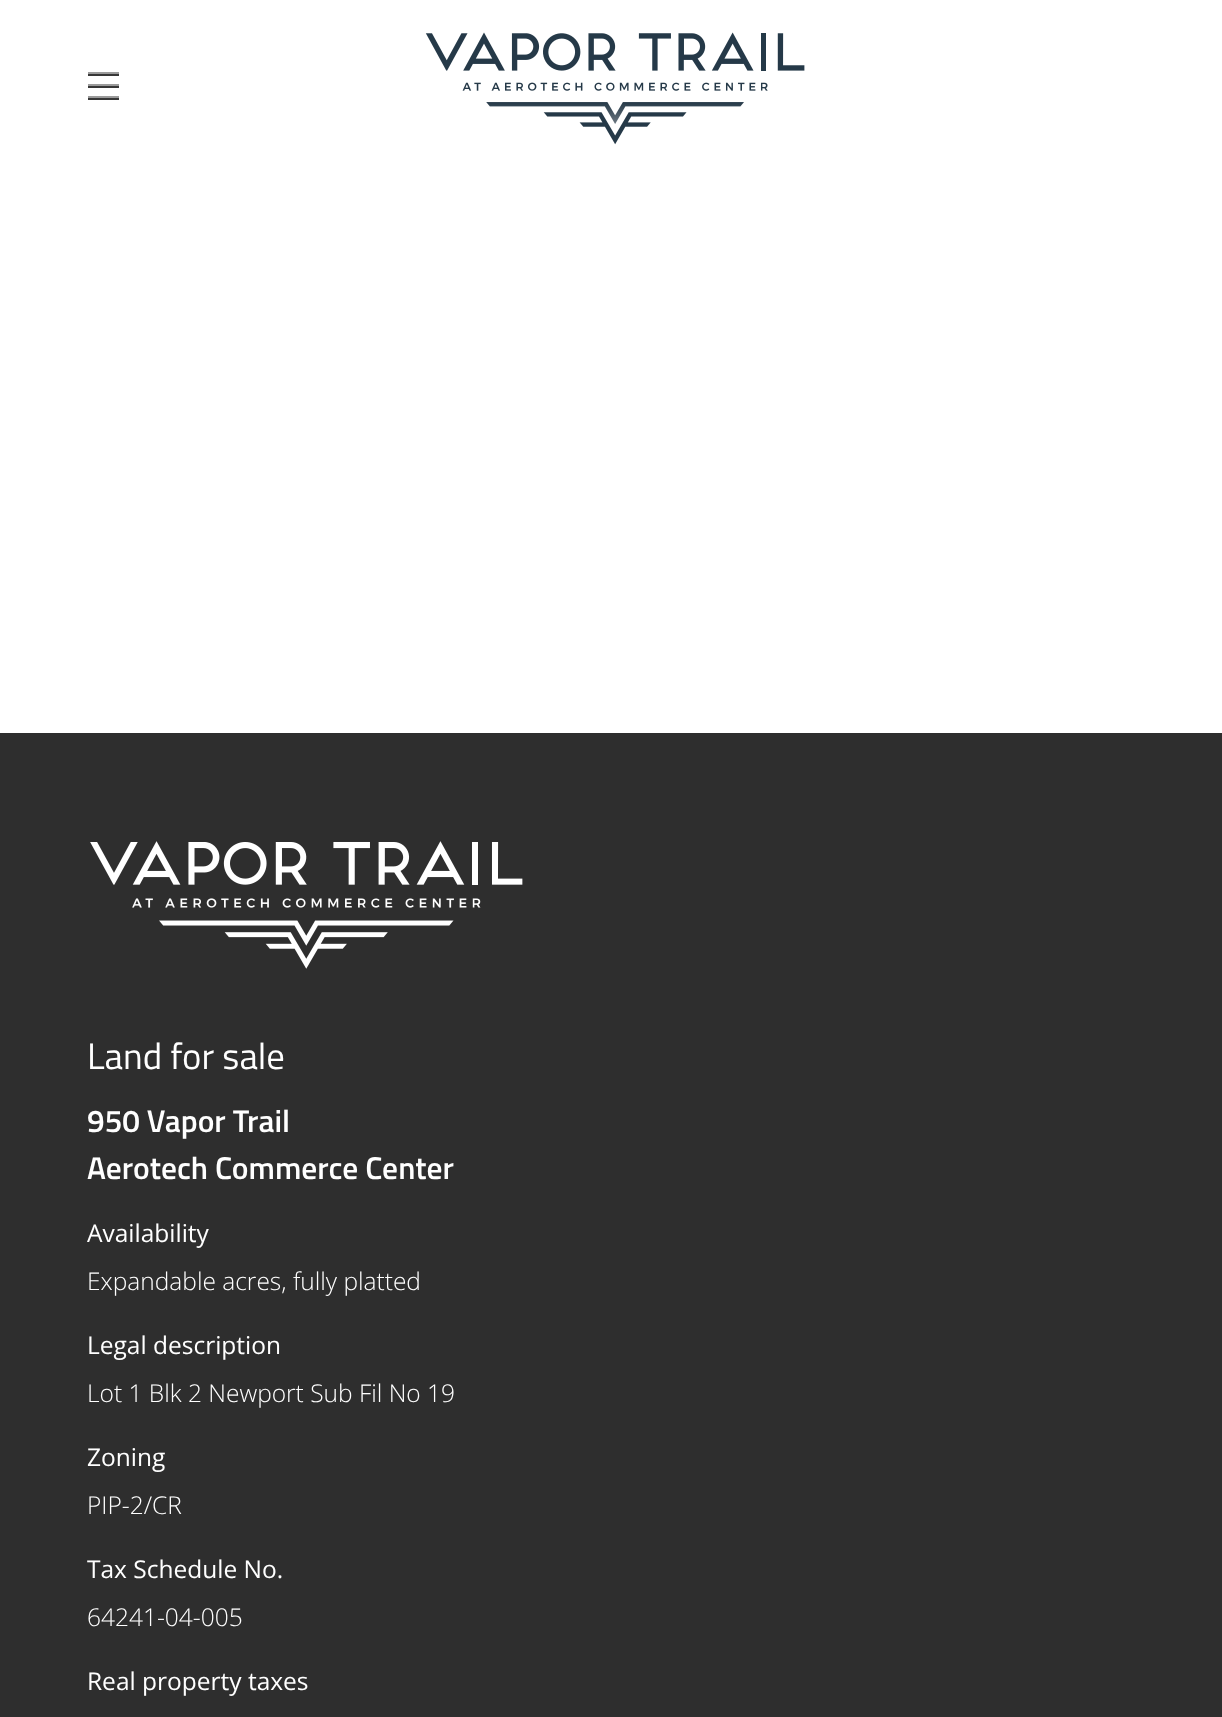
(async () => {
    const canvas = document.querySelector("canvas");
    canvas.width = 1222;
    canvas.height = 1717;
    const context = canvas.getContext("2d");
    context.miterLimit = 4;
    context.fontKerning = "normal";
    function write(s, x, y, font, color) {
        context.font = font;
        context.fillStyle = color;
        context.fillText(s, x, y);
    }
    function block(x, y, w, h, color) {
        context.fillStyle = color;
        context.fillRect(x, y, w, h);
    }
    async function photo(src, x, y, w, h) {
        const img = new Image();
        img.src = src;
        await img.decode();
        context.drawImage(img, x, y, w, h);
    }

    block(0, 0, 1222, 1717, "rgb(255, 255, 255)");
    block(88, 74, 31, 2, "rgb(55, 55, 55)");
    block(88, 72, 31, 2, "rgb(155, 155, 155)");
    block(88, 86, 31, 2, "rgb(55, 55, 55)");
    block(88, 84, 31, 2, "rgb(155, 155, 155)");
    block(88, 98, 31, 2, "rgb(55, 55, 55)");
    block(88, 96, 31, 2, "rgb(155, 155, 155)");
    await photo("media/1.png", 425, 32, 380, 113);
    block(0, 733, 1222, 984, "rgb(46, 46, 46)");
    await photo("media/2.png", 90, 841, 433, 128);
    write("Land for sale", 87, 1069, "36.75px Titillium Web", "rgb(255, 255, 255)");
    write("950 Vapor Trail", 87, 1132, "600 31.5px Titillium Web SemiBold", "rgb(255, 255, 255)");
    write("Aerotech Commerce Center", 87, 1179, "600 31.5px Titillium Web SemiBold", "rgb(255, 255, 255)");
    write("Availability", 87, 1242, "24.5px Open Sans", "rgb(255, 255, 255)");
    write("Expandable acres, fully platted", 87, 1290, "300 24.5px Open Sans", "rgb(255, 255, 255)");
    write("Legal description", 87, 1354, "24.5px Open Sans", "rgb(255, 255, 255)");
    write("Lot 1 Blk 2 Newport Sub Fil No 19", 87, 1402, "300 24.5px Open Sans", "rgb(255, 255, 255)");
    write("Zoning", 87, 1466, "24.5px Open Sans", "rgb(255, 255, 255)");
    write("PIP-2/CR", 87, 1514, "300 24.5px Open Sans", "rgb(255, 255, 255)");
    write("Tax Schedule No.", 87, 1578, "24.5px Open Sans", "rgb(255, 255, 255)");
    write("64241-04-005", 87, 1626, "300 24.5px Open Sans", "rgb(255, 255, 255)");
    write("Real property taxes", 87, 1690, "24.5px Open Sans", "rgb(255, 255, 255)");
})();
